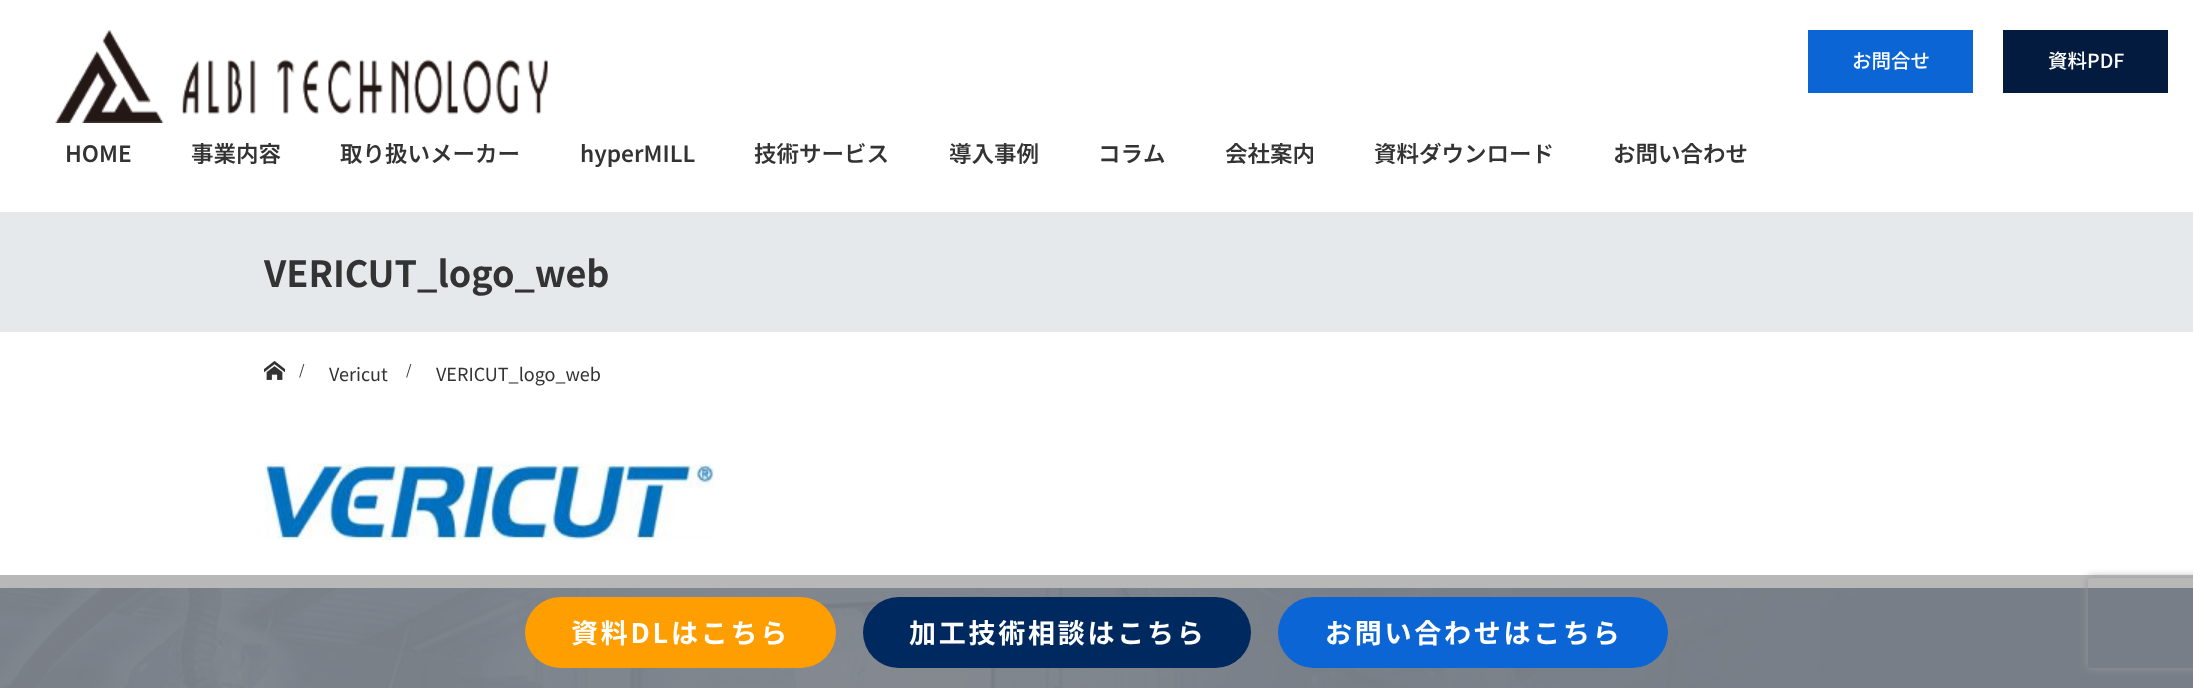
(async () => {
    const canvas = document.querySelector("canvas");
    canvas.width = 2193;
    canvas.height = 688;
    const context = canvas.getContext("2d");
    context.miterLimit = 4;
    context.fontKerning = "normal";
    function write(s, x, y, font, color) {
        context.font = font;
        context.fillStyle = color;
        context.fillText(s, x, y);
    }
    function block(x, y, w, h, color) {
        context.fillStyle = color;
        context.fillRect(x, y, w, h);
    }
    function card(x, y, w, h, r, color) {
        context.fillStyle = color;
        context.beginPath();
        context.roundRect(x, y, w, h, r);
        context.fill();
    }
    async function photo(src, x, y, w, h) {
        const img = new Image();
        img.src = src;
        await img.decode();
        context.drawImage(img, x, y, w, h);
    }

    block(0, 0, 2193, 688, "rgb(255, 255, 255)");
    block(1808, 30, 165, 63, "rgb(11, 101, 212)");
    write("お問合せ", 1852, 68, "500 19.5px Noto Sans JP", "rgb(255, 255, 255)");
    block(2003, 30, 165, 63, "rgb(3, 27, 62)");
    write("資料PDF", 2048, 68, "500 19.5px Noto Sans JP", "rgb(255, 255, 255)");
    await photo("media/1.png", 55, 30, 493, 93);
    write("HOME", 65, 162, "600 22.5px Noto Sans JP", "rgb(51, 51, 51)");
    write("事業内容", 191, 162, "600 22.5px Noto Sans JP", "rgb(51, 51, 51)");
    write("取り扱いメーカー", 340, 162, "600 22.5px Noto Sans JP", "rgb(51, 51, 51)");
    write("hyperMILL", 580, 162, "600 22.5px Noto Sans JP", "rgb(51, 51, 51)");
    write("技術サービス", 754, 162, "600 22.5px Noto Sans JP", "rgb(51, 51, 51)");
    write("導入事例", 949, 162, "600 22.5px Noto Sans JP", "rgb(51, 51, 51)");
    write("コラム", 1098, 162, "600 22.5px Noto Sans JP", "rgb(51, 51, 51)");
    write("会社案内", 1225, 162, "600 22.5px Noto Sans JP", "rgb(51, 51, 51)");
    write("資料ダウンロード", 1374, 162, "600 22.5px Noto Sans JP", "rgb(51, 51, 51)");
    write("お問い合わせ", 1613, 162, "600 22.5px Noto Sans JP", "rgb(51, 51, 51)");
    block(0, 212, 2193, 120, "rgb(230, 233, 236)");
    write("VERICUT_logo_web", 264, 287, "bold 36px Noto Sans JP", "rgb(51, 51, 51)");
    await photo("media/2.png", 264, 361, 21, 19);
    write("/", 299, 375, "14px Noto Sans JP", "rgb(51, 51, 51)");
    write("Vericut", 329, 381, "18px Noto Sans JP", "rgb(51, 51, 51)");
    write("/", 406, 375, "14px Noto Sans JP", "rgb(51, 51, 51)");
    write("VERICUT_logo_web", 436, 381, "18px Noto Sans JP", "rgb(51, 51, 51)");
    await photo("media/3.png", 264, 463, 450, 77);
    await photo("media/4.png", 0, 588, 2193, 100);
    context.save();
    context.beginPath();
    context.moveTo(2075, 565);
    context.lineTo(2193, 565);
    context.lineTo(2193, 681);
    context.lineTo(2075, 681);
    context.closePath();
    context.moveTo(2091, 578);
    context.lineTo(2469, 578);
    context.bezierCurveTo(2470.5, 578, 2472, 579.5, 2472, 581);
    context.lineTo(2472, 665);
    context.bezierCurveTo(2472, 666.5, 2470.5, 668, 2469, 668);
    context.lineTo(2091, 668);
    context.bezierCurveTo(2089.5, 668, 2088, 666.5, 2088, 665);
    context.lineTo(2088, 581);
    context.bezierCurveTo(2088, 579.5, 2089.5, 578, 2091, 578);
    context.closePath();
    context.clip("evenodd");
    context.fillStyle = "rgb(128, 128, 128)";
    context.filter = "blur(4px)";
    context.beginPath();
    context.roundRect(2088, 578, 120, 90, 3);
    context.fill();
    context.filter = "none";
    context.restore();
    block(0, 575, 2193, 113, "rgba(160, 160, 160, 0.75)");
    card(525, 597, 311, 71, 35.5, "rgb(255, 158, 0)");
    context.letterSpacing = "2.75px";
    write("資料DLはこちら", 571, 643, "bold 27px Noto Sans JP", "rgb(255, 255, 255)");
    card(863, 597, 388, 71, 35.5, "rgb(0, 42, 95)");
    write("加工技術相談はこちら", 909, 643, "bold 27px Noto Sans JP", "rgb(255, 255, 255)");
    card(1278, 597, 390, 71, 35.5, "rgb(11, 101, 212)");
    write("お問い合わせはこちら", 1325, 643, "bold 27px Noto Sans JP", "rgb(255, 255, 255)");
})();
